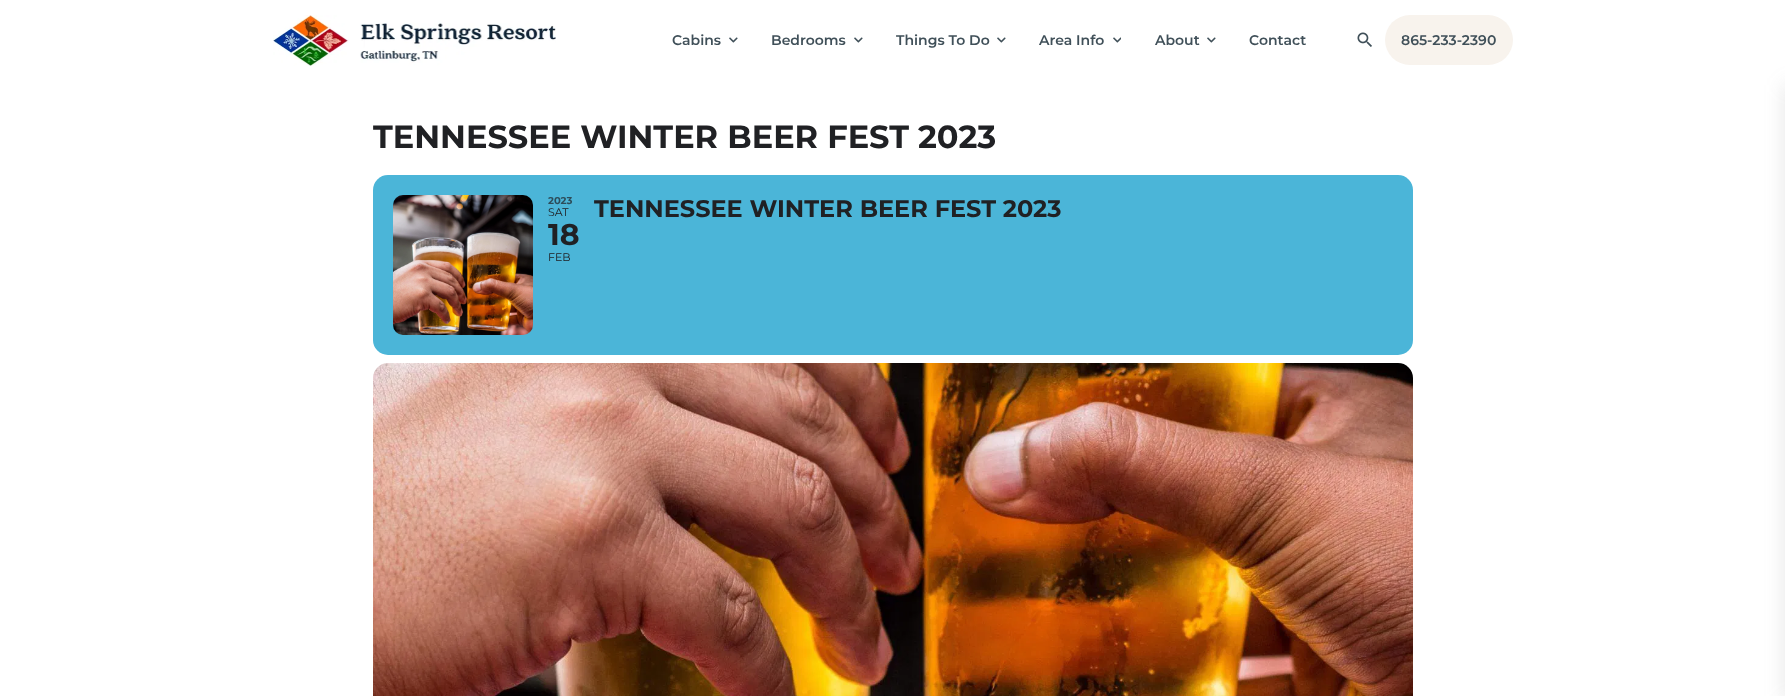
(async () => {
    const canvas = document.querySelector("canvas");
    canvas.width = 1785;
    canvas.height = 696;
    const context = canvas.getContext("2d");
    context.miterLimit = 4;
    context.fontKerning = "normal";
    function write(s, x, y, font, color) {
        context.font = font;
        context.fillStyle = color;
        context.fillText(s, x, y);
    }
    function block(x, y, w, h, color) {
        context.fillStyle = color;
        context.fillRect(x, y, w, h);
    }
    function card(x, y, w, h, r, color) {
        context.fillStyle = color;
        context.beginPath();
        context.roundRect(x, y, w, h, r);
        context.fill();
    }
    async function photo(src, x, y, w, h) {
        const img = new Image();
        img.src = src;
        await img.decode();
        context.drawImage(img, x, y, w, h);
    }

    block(0, 0, 1785, 696, "rgb(255, 255, 255)");
    await photo("media/1.png", 273, 15, 283, 51);
    write("Cabins", 672, 45, "600 14px Montserrat", "rgb(64, 80, 89)");
    await photo("media/2.png", 729, 37, 9, 6);
    write("Bedrooms", 771, 45, "600 14px Montserrat", "rgb(64, 80, 89)");
    await photo("media/2.png", 854, 37, 9, 6);
    write("Things To Do", 896, 45, "600 14px Montserrat", "rgb(64, 80, 89)");
    await photo("media/2.png", 997, 37, 9, 6);
    write("Area Info", 1039, 45, "600 14px Montserrat", "rgb(64, 80, 89)");
    await photo("media/3.png", 1113, 37, 8, 6);
    write("About", 1155, 45, "600 14px Montserrat", "rgb(64, 80, 89)");
    await photo("media/2.png", 1207, 37, 9, 6);
    write("Contact", 1249, 45, "600 14px Montserrat", "rgb(64, 80, 89)");
    await photo("media/4.png", 1357, 32, 15, 15);
    card(1385, 15, 128, 50, 25, "rgb(248, 243, 237)");
    write("865-233-2390", 1401, 45, "600 14px Montserrat", "rgb(64, 80, 89)");
    context.fillStyle = "rgba(119, 119, 119, 0.2)";
    context.filter = "blur(10px)";
    context.beginPath();
    context.rect(1785, 85, 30, 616);
    context.fill();
    context.filter = "none";
    context.save();
    context.beginPath();
    context.roundRect(373, 100, 1040, 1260, 5);
    context.clip();
    write("TENNESSEE WINTER BEER FEST 2023", 373, 148, "bold 32px Montserrat", "rgb(32, 33, 36)");
    context.restore();
    card(373, 175, 1040, 180, 15, "rgb(75, 181, 216)");
    await photo("media/5.png", 393, 195, 140, 140);
    write("2023", 548, 204, "bold 10px Montserrat", "rgb(45, 77, 90)");
    write("SAT", 548, 216, "11px Montserrat", "rgb(32, 33, 36)");
    write("18", 548, 245, "bold 30px Montserrat", "rgb(32, 33, 36)");
    write("FEB", 548, 261, "11px Montserrat", "rgb(32, 33, 36)");
    write("TENNESSEE WINTER BEER FEST 2023", 594, 217, "bold 24px Montserrat", "rgb(32, 33, 36)");
    await photo("media/6.png", 373, 363, 1040, 333);
})();
